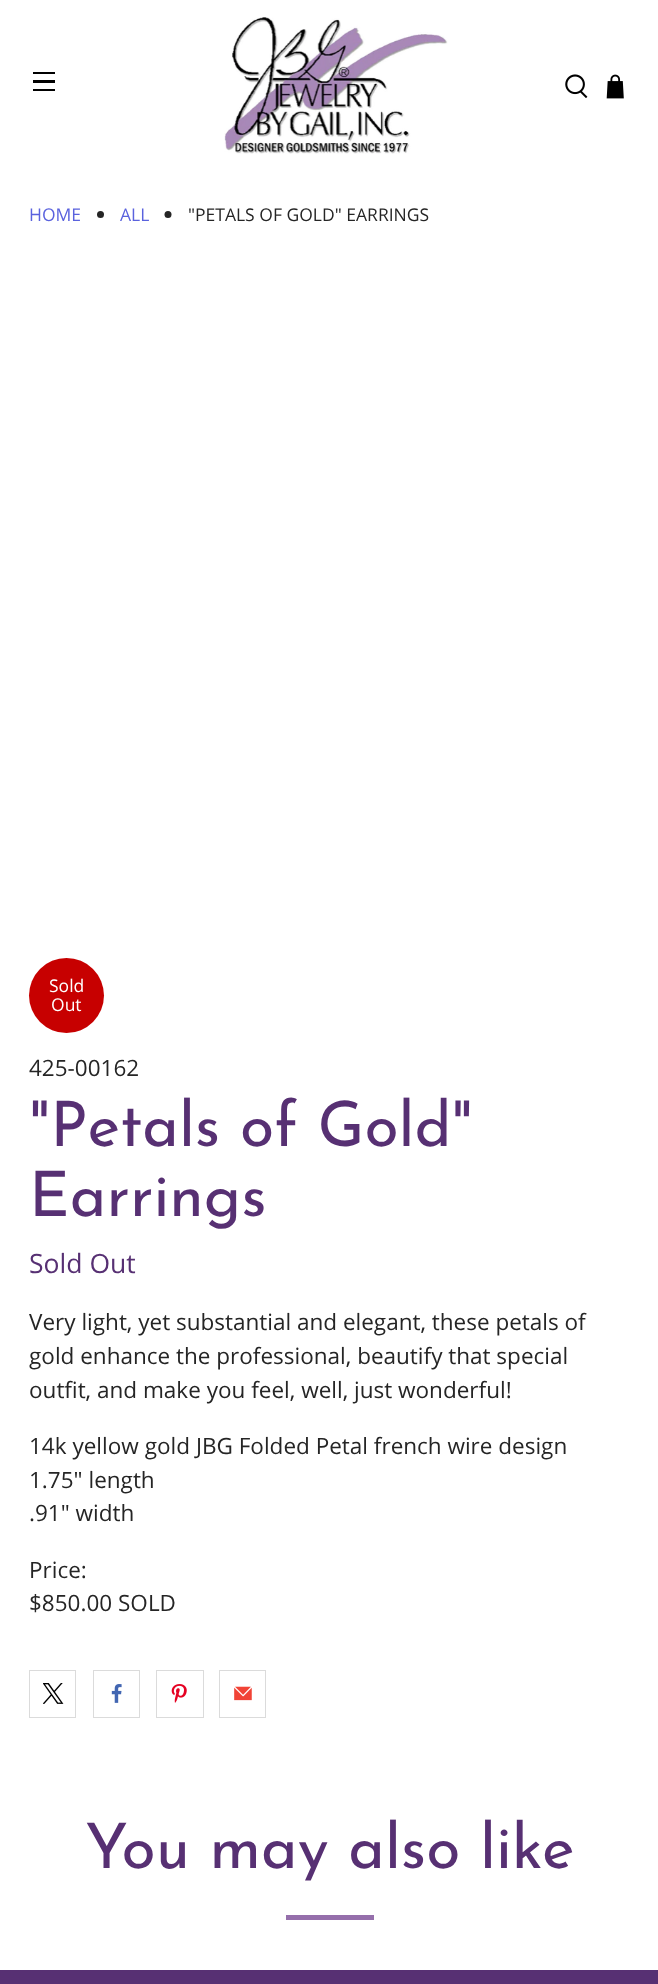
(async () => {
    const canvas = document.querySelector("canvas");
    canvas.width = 658;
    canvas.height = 1984;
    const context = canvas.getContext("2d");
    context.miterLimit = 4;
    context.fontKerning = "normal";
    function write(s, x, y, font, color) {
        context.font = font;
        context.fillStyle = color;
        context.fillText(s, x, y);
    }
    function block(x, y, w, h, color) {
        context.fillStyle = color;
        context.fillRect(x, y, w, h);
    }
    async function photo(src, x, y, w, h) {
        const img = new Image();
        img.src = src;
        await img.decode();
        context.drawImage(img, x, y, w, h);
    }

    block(0, 0, 658, 1984, "rgb(255, 255, 255)");
    block(33, 72, 22, 2, "rgb(0, 0, 0)");
    block(33, 80, 22, 3, "rgb(0, 0, 0)");
    block(33, 89, 22, 2, "rgb(0, 0, 0)");
    await photo("media/1.png", 224, 17, 224, 137);
    await photo("media/2.png", 565, 74, 23, 24);
    await photo("media/3.png", 606, 74, 18, 25);
    write("HOME", 29, 221, "17.5px Open Sans", "rgb(90, 98, 222)");
    context.fillStyle = "rgb(37, 37, 37)";
    context.beginPath();
    context.arc(100.5, 214.5, 3.5, 0, Math.PI * 2);
    context.fill();
    write("ALL", 120, 221, "17.5px Open Sans", "rgb(90, 98, 222)");
    context.fillStyle = "rgb(37, 37, 37)";
    context.beginPath();
    context.arc(168, 214.5, 3.5, 0, Math.PI * 2);
    context.fill();
    write("\"PETALS OF GOLD\" EARRINGS", 188, 221, "17.5px Open Sans", "rgb(37, 37, 37)");
    context.fillStyle = "rgb(199, 0, 0)";
    context.beginPath();
    context.arc(66.5, 995.5, 37.5, 0, Math.PI * 2);
    context.fill();
    write("Sold", 49, 992, "17.5px Open Sans", "rgb(255, 255, 255)");
    write("Out", 51, 1011, "17.5px Open Sans", "rgb(255, 255, 255)");
    write("425-00162", 29, 1076, "22.5px Open Sans", "rgb(37, 37, 37)");
    write("\"Petals of Gold\"", 29, 1146, "62.5px Josefin Sans", "rgb(87, 48, 115)");
    write("Earrings", 29, 1216, "62.5px Josefin Sans", "rgb(87, 48, 115)");
    write("Sold Out", 29, 1273, "26.5px Open Sans", "rgb(87, 48, 115)");
    write("Very light, yet substantial and elegant, these petals of", 29, 1330, "22.5px Open Sans", "rgb(37, 37, 37)");
    write("gold enhance the professional, beautify that special", 29, 1364, "22.5px Open Sans", "rgb(37, 37, 37)");
    write("outfit, and make you feel, well, just wonderful!", 29, 1398, "22.5px Open Sans", "rgb(37, 37, 37)");
    write("14k yellow gold JBG Folded Petal french wire design", 29, 1454, "22.5px Open Sans", "rgb(37, 37, 37)");
    write("1.75\" length", 29, 1488, "22.5px Open Sans", "rgb(37, 37, 37)");
    write(".91\" width", 29, 1521, "22.5px Open Sans", "rgb(37, 37, 37)");
    write("Price:", 29, 1578, "22.5px Open Sans", "rgb(37, 37, 37)");
    write("$850.00 SOLD", 29, 1611, "22.5px Open Sans", "rgb(37, 37, 37)");
    context.strokeStyle = "rgb(219, 219, 219)";
    context.strokeRect(29.5, 1670.5, 46, 47);
    await photo("media/4.png", 43, 1683, 21, 21);
    context.strokeRect(93.5, 1670.5, 46, 47);
    await photo("media/5.png", 111, 1684, 11, 19);
    context.strokeRect(156.5, 1670.5, 47, 47);
    await photo("media/6.png", 171, 1684, 16, 19);
    context.strokeRect(219.5, 1670.5, 46, 47);
    await photo("media/7.png", 234, 1686, 18, 15);
    write("You may also like", 85, 1868, "62.5px Josefin Sans", "rgb(87, 48, 115)");
    block(286, 1915, 88, 5, "rgb(149, 111, 171)");
    block(0, 1970, 658, 14, "rgb(87, 48, 115)");
})();
